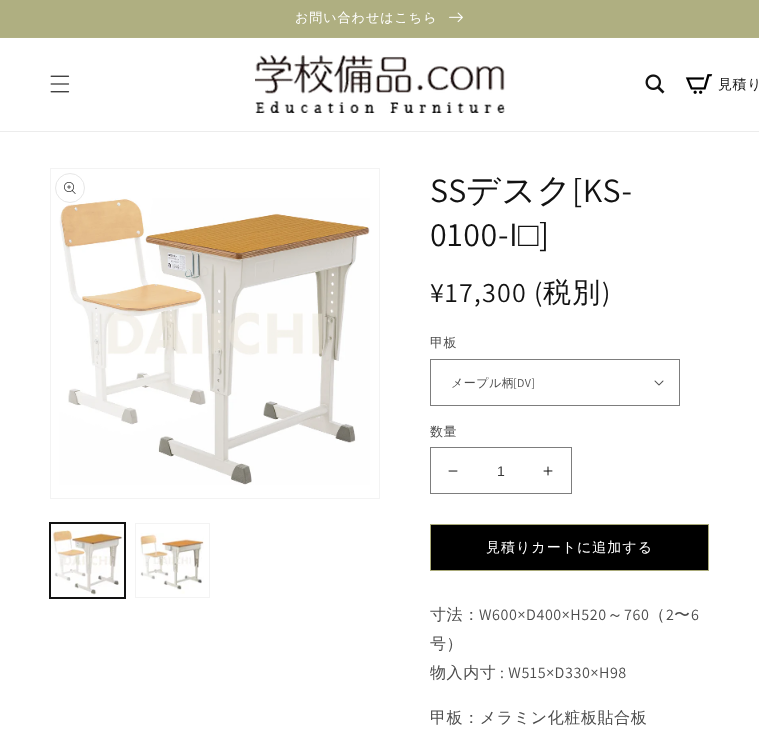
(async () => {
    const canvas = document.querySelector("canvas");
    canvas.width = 759;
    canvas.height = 734;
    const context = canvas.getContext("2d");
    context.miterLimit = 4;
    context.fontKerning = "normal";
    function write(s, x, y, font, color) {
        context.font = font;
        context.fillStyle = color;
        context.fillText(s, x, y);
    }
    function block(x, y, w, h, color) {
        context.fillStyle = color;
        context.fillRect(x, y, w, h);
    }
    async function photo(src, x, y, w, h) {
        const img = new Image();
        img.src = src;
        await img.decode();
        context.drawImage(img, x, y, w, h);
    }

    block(0, 0, 759, 734, "rgb(255, 255, 255)");
    block(0, 37, 759, 1, "rgb(177, 177, 132)");
    block(0, 0, 759, 37, "rgb(175, 175, 129)");
    context.letterSpacing = "1px";
    write("お問い合わせはこちら", 295, 22, "500 13px WenQuanYi Zen Hei", "rgb(255, 255, 255)");
    await photo("media/1.png", 449, 12, 14, 11);
    block(0, 131, 759, 1, "rgb(236, 236, 236)");
    await photo("media/2.png", 50, 75, 20, 18);
    await photo("media/3.png", 255, 55, 250, 58);
    await photo("media/4.png", 645, 74, 20, 20);
    await photo("media/5.png", 685, 74, 28, 20);
    context.letterSpacing = "0.6px";
    write("見積り", 718, 89, "500 14px WenQuanYi Zen Hei", "rgb(18, 18, 18)");
    context.strokeStyle = "rgb(243, 243, 243)";
    context.strokeRect(50.5, 168.5, 329, 330);
    await photo("media/6.png", 59, 198, 311, 287);
    context.beginPath();
    context.arc(70, 188, 14.5, 0, Math.PI * 2);
    context.strokeStyle = "rgb(231, 231, 231)";
    context.stroke();
    await photo("media/7.png", 64, 182, 12, 12);
    context.strokeStyle = "rgb(18, 18, 18)";
    context.strokeRect(49.5, 522.5, 76, 76);
    context.strokeRect(50.5, 523.5, 74, 74);
    await photo("media/8.png", 51, 530, 73, 65);
    context.strokeStyle = "rgb(243, 243, 243)";
    context.strokeRect(135.5, 523.5, 74, 74);
    await photo("media/9.png", 140, 533, 64, 61);
    write("SS", 430, 202, "34px Assistant", "rgb(18, 18, 18)");
    write("デスク", 466, 202, "500 34px WenQuanYi Zen Hei", "rgb(18, 18, 18)");
    write("[KS-", 572, 202, "34px Assistant", "rgb(18, 18, 18)");
    write("0100-I", 430, 246, "34px Assistant", "rgb(18, 18, 18)");
    write("□", 518, 246, "34px Liberation Sans", "rgb(18, 18, 18)");
    write("]", 539, 246, "34px Assistant", "rgb(18, 18, 18)");
    context.letterSpacing = "1.25px";
    write("¥17,300 (", 430, 302, "28px Assistant", "rgb(18, 18, 18)");
    write("税別", 543, 302, "500 28px WenQuanYi Zen Hei", "rgb(18, 18, 18)");
    write(")", 602, 302, "28px Assistant", "rgb(18, 18, 18)");
    context.letterSpacing = "0.5px";
    write("甲板", 430, 347, "500 13px WenQuanYi Zen Hei", "rgb(77, 77, 77)");
    await photo("media/10.png", 654, 380, 10, 6);
    context.strokeStyle = "rgb(125, 125, 125)";
    context.strokeRect(430.5, 359.5, 249, 46);
    write("メープル柄", 451, 387, "500 12px WenQuanYi Zen Hei", "rgb(77, 77, 77)");
    write("[DV]", 513, 387, "12px Assistant", "rgb(77, 77, 77)");
    write("数量", 430, 436, "500 13px WenQuanYi Zen Hei", "rgb(77, 77, 77)");
    await photo("media/11.png", 448, 470, 10, 2);
    await photo("media/12.png", 543, 466, 10, 10);
    context.strokeRect(430.5, 447.5, 141, 46);
    context.letterSpacing = "0px";
    write("1", 497, 476, "14px Liberation Sans", "rgb(54, 54, 54)");
    block(431, 525, 277, 45, "rgb(0, 0, 0)");
    context.strokeStyle = "rgb(170, 170, 121)";
    context.strokeRect(430.5, 524.5, 278, 46);
    context.letterSpacing = "1px";
    write("見積りカートに追加する", 486, 552, "500 14px WenQuanYi Zen Hei", "rgb(255, 255, 255)");
    context.letterSpacing = "0.6px";
    write("寸法：", 430, 620, "500 16px WenQuanYi Zen Hei", "rgb(77, 77, 77)");
    write("W600×D400×H520", 479, 620, "16px Assistant", "rgb(77, 77, 77)");
    write("～", 607, 620, "500 16px WenQuanYi Zen Hei", "rgb(77, 77, 77)");
    write("760", 624, 620, "16px Assistant", "rgb(77, 77, 77)");
    write("（", 649, 620, "500 16px WenQuanYi Zen Hei", "rgb(77, 77, 77)");
    write("2", 666, 620, "16px Assistant", "rgb(77, 77, 77)");
    write("〜", 674, 620, "500 16px WenQuanYi Zen Hei", "rgb(77, 77, 77)");
    write("6", 691, 620, "16px Assistant", "rgb(77, 77, 77)");
    write("号）", 430, 649, "500 16px WenQuanYi Zen Hei", "rgb(77, 77, 77)");
    write("物入内寸", 430, 678, "500 16px WenQuanYi Zen Hei", "rgb(77, 77, 77)");
    write(": W515×D330×H98", 500, 678, "16px Assistant", "rgb(77, 77, 77)");
    write("甲板：メラミン化粧板貼合板", 430, 723, "500 16px WenQuanYi Zen Hei", "rgb(77, 77, 77)");
})();
